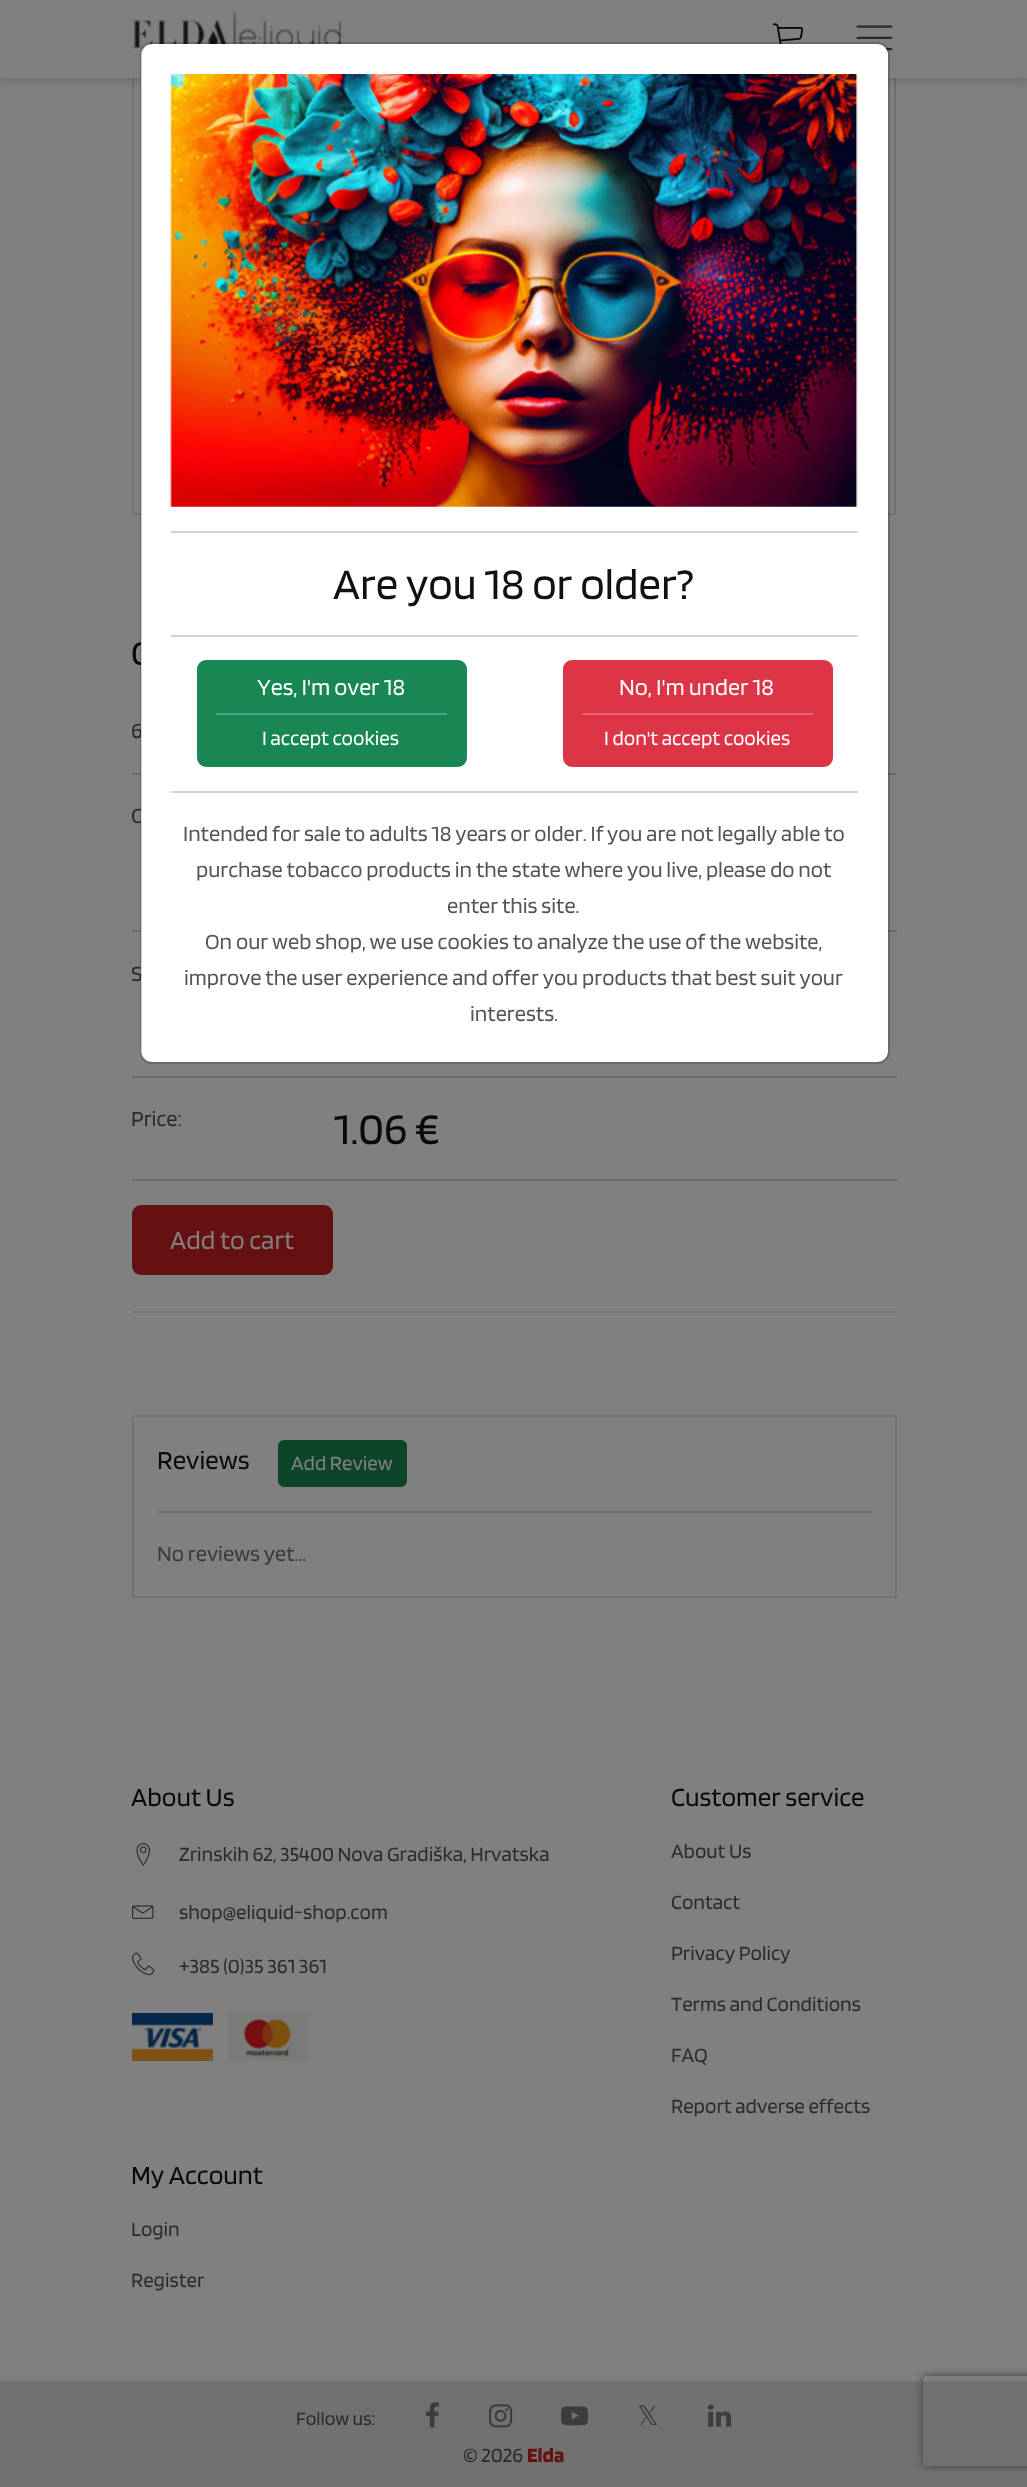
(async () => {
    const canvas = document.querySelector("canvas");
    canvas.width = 1027;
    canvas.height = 2487;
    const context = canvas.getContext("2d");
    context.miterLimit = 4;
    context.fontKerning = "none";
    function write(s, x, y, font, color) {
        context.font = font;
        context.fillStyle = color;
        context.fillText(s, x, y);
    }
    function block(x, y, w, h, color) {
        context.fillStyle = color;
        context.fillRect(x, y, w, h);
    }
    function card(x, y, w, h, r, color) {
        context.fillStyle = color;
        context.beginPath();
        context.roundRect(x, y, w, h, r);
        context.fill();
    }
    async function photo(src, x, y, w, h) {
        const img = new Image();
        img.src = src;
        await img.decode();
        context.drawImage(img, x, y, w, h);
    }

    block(0, 0, 1027, 2487, "rgb(128, 128, 128)");
    context.strokeStyle = "rgb(112, 111, 111)";
    context.lineWidth = 2;
    context.strokeRect(133, -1, 762, 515);
    await photo("media/5.png", 133, 78, 762, 436);
    context.fillStyle = "rgba(0, 0, 0, 0.2)";
    context.filter = "blur(6px)";
    context.beginPath();
    context.rect(-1, -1, 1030, 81);
    context.fill();
    context.filter = "none";
    block(0, 0, 1027, 78, "rgb(128, 128, 128)");
    await photo("media/1.png", 131, 10, 211, 56);
    await photo("media/2.png", 772, 23, 32, 21);
    await photo("media/3.png", 856, 25, 37, 26);
    write("C", 131, 665, "36px Blinker", "rgb(9, 9, 9)");
    write("6", 131, 738, "22.5px Blinker", "rgb(43, 43, 43)");
    block(132, 773, 765, 2, "rgb(107, 107, 107)");
    write("C", 131, 823, "22.5px Blinker", "rgb(43, 43, 43)");
    block(132, 930, 765, 2, "rgb(107, 107, 107)");
    write("S", 131, 981, "22.5px Blinker", "rgb(43, 43, 43)");
    card(141, 44, 747, 1018, 11, "rgb(255, 255, 255)");
    context.beginPath();
    context.roundRect(141, 43, 748, 1020, 11);
    context.strokeStyle = "rgba(0, 0, 0, 0.18)";
    context.stroke();
    await photo("media/4.png", 170, 74, 688, 433);
    block(171, 531, 687, 2, "rgb(213, 213, 213)");
    write("Are you 18 or older?", 333, 599, "45px Blinker", "rgb(17, 17, 17)");
    block(171, 635, 687, 2, "rgb(213, 213, 213)");
    context.fillStyle = "rgb(25, 135, 84)";
    context.beginPath();
    context.roundRect(198, 661, 268, 105, 8);
    context.fill();
    context.strokeStyle = "rgb(25, 135, 84)";
    context.stroke();
    write("Yes, I'm over 18", 257, 695, "24px Blinker", "rgb(255, 255, 255)");
    block(216, 713, 231, 2, "rgb(83, 165, 127)");
    write("I accept cookies", 262, 745, "21px Blinker", "rgb(255, 255, 255)");
    context.fillStyle = "rgb(220, 53, 69)";
    context.beginPath();
    context.roundRect(564, 661, 268, 105, 8);
    context.fill();
    context.strokeStyle = "rgb(220, 53, 69)";
    context.stroke();
    write("No, I'm under 18", 619, 695, "24px Blinker", "rgb(255, 255, 255)");
    block(582, 713, 231, 2, "rgb(229, 104, 116)");
    write("I don't accept cookies", 604, 745, "21px Blinker", "rgb(255, 255, 255)");
    block(171, 791, 687, 2, "rgb(213, 213, 213)");
    write("Intended for sale to adults 18 years or older. If", 183, 841, "22.5px Blinker", "rgb(85, 85, 85)");
    write("you are not legally able to", 607, 841, "22.5px Blinker", "rgb(85, 85, 85)");
    write("purchase tobacco products in the state where you live, please do not", 196, 877, "22.5px Blinker", "rgb(85, 85, 85)");
    write("enter this site.", 447, 913, "22.5px Blinker", "rgb(85, 85, 85)");
    write("On our web shop, we use cookies to analyze the use of the", 205, 949, "22.5px Blinker", "rgb(85, 85, 85)");
    write("website,", 745, 949, "22.5px Blinker", "rgb(85, 85, 85)");
    write("improve the user experience and offer you products", 184, 985, "22.5px Blinker", "rgb(85, 85, 85)");
    write("that best suit your", 671, 985, "22.5px Blinker", "rgb(85, 85, 85)");
    write("interests.", 470, 1021, "22.5px Blinker", "rgb(85, 85, 85)");
    block(132, 1076, 765, 2, "rgb(107, 107, 107)");
    write("Price:", 131, 1126, "22.5px Blinker", "rgb(43, 43, 43)");
    write("1.06 €", 334, 1144, "45px Blinker", "rgb(9, 9, 9)");
    block(132, 1179, 765, 2, "rgb(107, 107, 107)");
    card(132, 1205, 201, 70, 9, "rgb(102, 17, 17)");
    write("Add to cart", 170, 1249, "27px Blinker", "rgb(128, 128, 128)");
    block(132, 1311, 765, 2, "rgb(118, 118, 118)");
    context.strokeStyle = "rgb(111, 113, 115)";
    context.strokeRect(133, 1416, 763, 181);
    write("Reviews", 157, 1469, "27px Blinker", "rgb(9, 9, 9)");
    context.fillStyle = "rgb(13, 68, 42)";
    context.beginPath();
    context.roundRect(279, 1441, 127, 45, 5);
    context.fill();
    context.strokeStyle = "rgb(13, 68, 42)";
    context.stroke();
    write("Add Review", 291, 1470, "21px Blinker", "rgb(128, 128, 128)");
    block(158, 1511, 714, 2, "rgb(107, 107, 107)");
    write("No reviews yet...", 157, 1561, "22.5px Blinker", "rgb(54, 59, 63)");
    write("About Us", 131, 1806, "27px Blinker", "rgb(9, 9, 9)");
    await photo("media/6.png", 136, 1843, 14, 23);
    write("Zrinskih 62, 35400 Nova Gradiška, Hrvatska", 179, 1861, "21px Blinker", "rgb(43, 43, 43)");
    await photo("media/7.png", 132, 1905, 22, 14);
    write("shop@eliquid-shop.com", 179, 1919, "21px Blinker", "rgb(43, 43, 43)");
    await photo("media/8.png", 132, 1952, 23, 24);
    write("+385 (0)35 361 361", 179, 1973, "21px Blinker", "rgb(43, 43, 43)");
    await photo("media/9.png", 132, 2013, 81, 48);
    await photo("media/10.png", 228, 2013, 81, 48);
    write("Customer service", 671, 1806, "27px Blinker", "rgb(9, 9, 9)");
    write("About Us", 671, 1858, "21px Blinker", "rgb(43, 43, 43)");
    write("Contact", 671, 1909, "21px Blinker", "rgb(43, 43, 43)");
    write("Privacy Policy", 671, 1960, "21px Blinker", "rgb(43, 43, 43)");
    write("Terms and Conditions", 671, 2011, "21px Blinker", "rgb(43, 43, 43)");
    write("FAQ", 671, 2062, "21px Blinker", "rgb(43, 43, 43)");
    write("Report adverse effects", 671, 2113, "21px Blinker", "rgb(43, 43, 43)");
    write("My Account", 131, 2184, "27px Blinker", "rgb(9, 9, 9)");
    write("Login", 131, 2236, "21px Blinker", "rgb(43, 43, 43)");
    write("Register", 131, 2287, "21px Blinker", "rgb(43, 43, 43)");
    block(0, 2381, 1027, 106, "rgb(113, 113, 113)");
    write("Follow us:", 296, 2425, "19.5px Blinker", "rgb(43, 43, 43)");
    await photo("media/11.png", 425, 2402, 14, 26);
    await photo("media/12.png", 489, 2404, 24, 24);
    await photo("media/13.png", 561, 2406, 27, 20);
    write("𝕏", 637, 2425, "27px DejaVu Sans", "rgb(61, 61, 61)");
    await photo("media/14.png", 708, 2404, 24, 23);
    write("© 2026", 463, 2462, "21px Blinker", "rgb(43, 43, 43)");
    write("Elda", 527, 2462, "bold 21px Blinker", "rgb(102, 17, 17)");
    context.save();
    context.beginPath();
    context.moveTo(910, 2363);
    context.lineTo(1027, 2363);
    context.lineTo(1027, 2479);
    context.lineTo(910, 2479);
    context.closePath();
    context.moveTo(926, 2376);
    context.lineTo(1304, 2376);
    context.bezierCurveTo(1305.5, 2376, 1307, 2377.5, 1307, 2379);
    context.lineTo(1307, 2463);
    context.bezierCurveTo(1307, 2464.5, 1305.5, 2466, 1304, 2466);
    context.lineTo(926, 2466);
    context.bezierCurveTo(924.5, 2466, 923, 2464.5, 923, 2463);
    context.lineTo(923, 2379);
    context.bezierCurveTo(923, 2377.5, 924.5, 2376, 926, 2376);
    context.closePath();
    context.clip("evenodd");
    context.fillStyle = "rgb(64, 64, 64)";
    context.filter = "blur(4px)";
    context.beginPath();
    context.roundRect(923, 2376, 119, 90, 3);
    context.fill();
    context.filter = "none";
    context.restore();
})();
